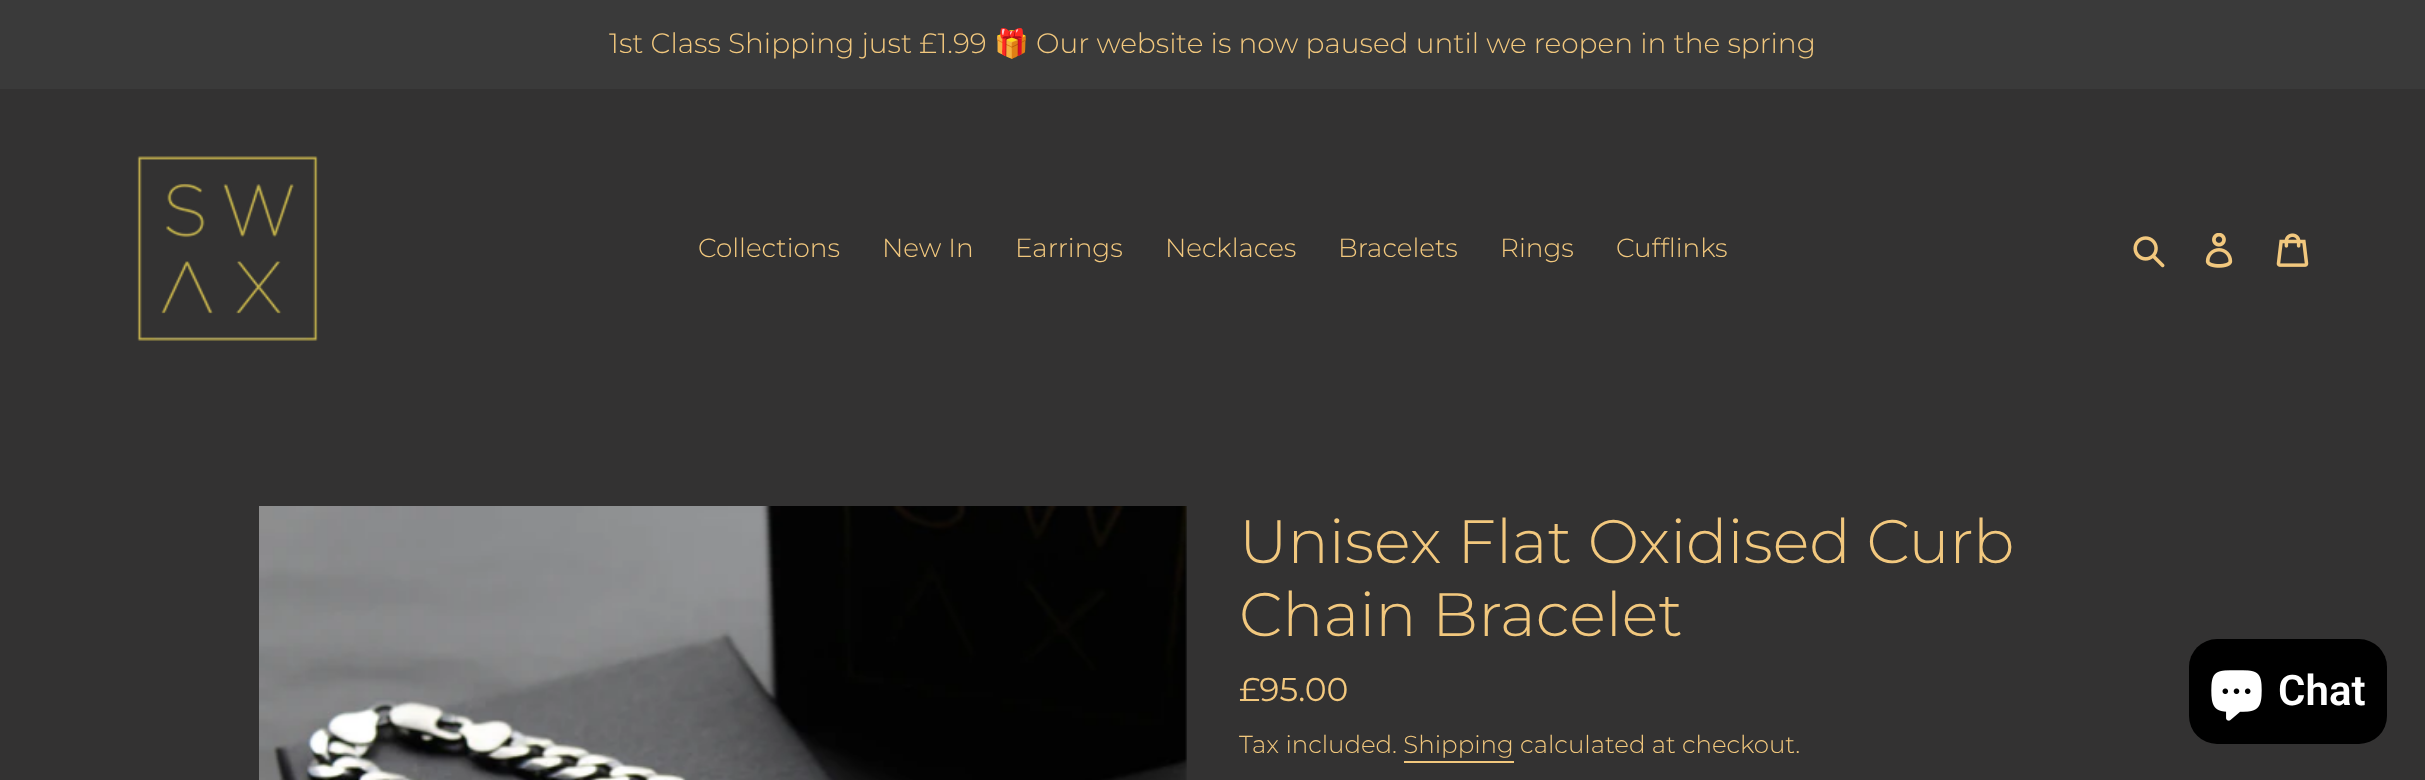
(async () => {
    const canvas = document.querySelector("canvas");
    canvas.width = 2425;
    canvas.height = 780;
    const context = canvas.getContext("2d");
    context.miterLimit = 4;
    context.fontKerning = "normal";
    function write(s, x, y, font, color) {
        context.font = font;
        context.fillStyle = color;
        context.fillText(s, x, y);
    }
    function block(x, y, w, h, color) {
        context.fillStyle = color;
        context.fillRect(x, y, w, h);
    }
    function card(x, y, w, h, r, color) {
        context.fillStyle = color;
        context.beginPath();
        context.roundRect(x, y, w, h, r);
        context.fill();
    }
    async function photo(src, x, y, w, h) {
        const img = new Image();
        img.src = src;
        await img.decode();
        context.drawImage(img, x, y, w, h);
    }

    block(0, 0, 2425, 780, "rgb(51, 50, 50)");
    block(0, 0, 2425, 89, "rgb(58, 58, 58)");
    write("1st Class Shipping just £1.99", 609, 53, "300 28px Montserrat", "rgb(242, 200, 126)");
    write("🎁", 994, 53, "28px Noto Color Emoji", "rgb(242, 200, 126)");
    write("Our website is now paused until we reopen in the spring", 1036, 53, "300 28px Montserrat", "rgb(242, 200, 126)");
    await photo("media/1.png", 137, 156, 181, 185);
    write("Collections", 698, 257, "300 26.25px Montserrat", "rgb(242, 200, 126)");
    write("New In", 882, 257, "300 26.25px Montserrat", "rgb(242, 200, 126)");
    write("Earrings", 1015, 257, "300 26.25px Montserrat", "rgb(242, 200, 126)");
    write("Necklaces", 1165, 257, "300 26.25px Montserrat", "rgb(242, 200, 126)");
    write("Bracelets", 1338, 257, "300 26.25px Montserrat", "rgb(242, 200, 126)");
    write("Rings", 1500, 257, "300 26.25px Montserrat", "rgb(242, 200, 126)");
    write("Cufflinks", 1616, 257, "300 26.25px Montserrat", "rgb(242, 200, 126)");
    await photo("media/2.png", 2133, 236, 32, 32);
    await photo("media/3.png", 2205, 233, 28, 35);
    await photo("media/4.png", 2276, 233, 33, 34);
    await photo("media/5.png", 259, 506, 928, 274);
    write("Unisex Flat Oxidised Curb", 1239, 563, "300 61.25px Montserrat", "rgb(242, 200, 126)");
    write("Chain Bracelet", 1239, 636, "300 61.25px Montserrat", "rgb(242, 200, 126)");
    write("£95.00", 1239, 701, "33px Montserrat", "rgb(242, 200, 126)");
    write("Tax included. Shipping calculated at checkout.", 1239, 753, "300 24.5px Montserrat", "rgb(242, 200, 126)");
    block(1404, 761, 110, 2, "rgb(242, 200, 126)");
    card(2189, 639, 198, 105, 28, "rgb(0, 0, 0)");
    await photo("media/6.png", 2211, 670, 51, 51);
    write("Chat", 2278, 705, "600 42px Roboto", "rgb(255, 255, 255)");
})();
